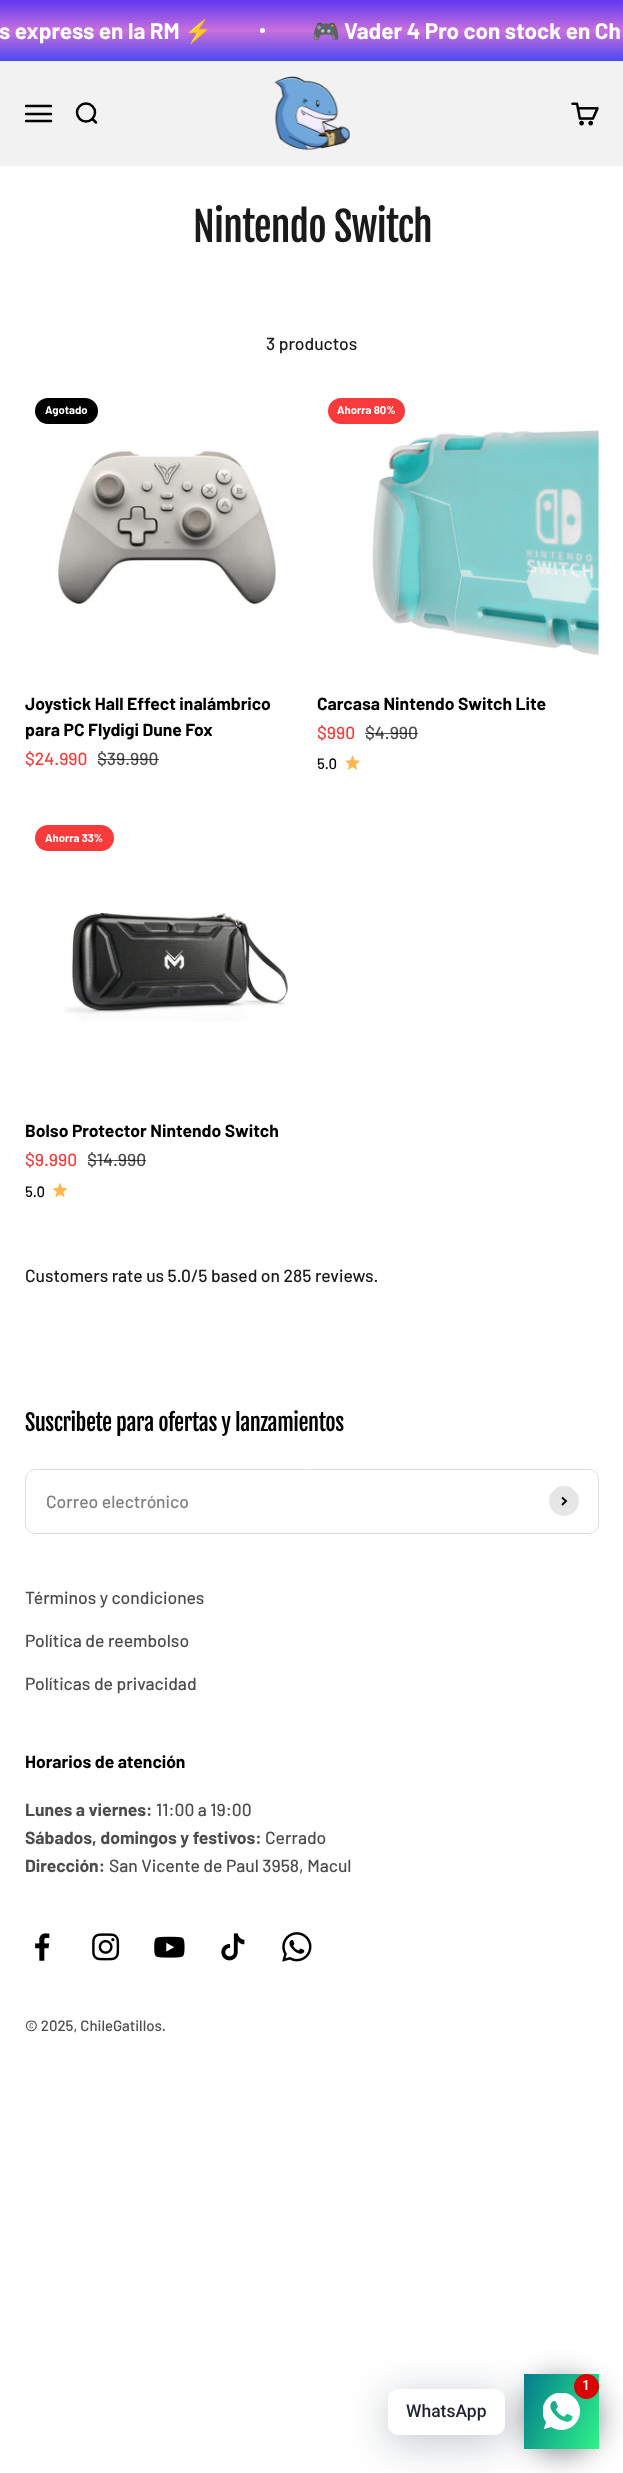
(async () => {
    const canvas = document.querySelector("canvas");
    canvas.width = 623;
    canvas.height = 2473;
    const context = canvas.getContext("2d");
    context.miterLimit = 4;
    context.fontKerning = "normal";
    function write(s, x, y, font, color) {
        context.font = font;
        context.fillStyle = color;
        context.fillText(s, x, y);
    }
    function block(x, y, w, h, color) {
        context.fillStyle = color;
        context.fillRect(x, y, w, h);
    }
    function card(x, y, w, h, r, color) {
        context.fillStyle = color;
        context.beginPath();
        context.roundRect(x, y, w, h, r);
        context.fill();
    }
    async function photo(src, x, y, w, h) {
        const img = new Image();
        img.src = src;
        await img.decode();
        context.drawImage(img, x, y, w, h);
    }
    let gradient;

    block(0, 0, 623, 2473, "rgb(255, 255, 255)");
    gradient = context.createLinearGradient(312, 0, 312, 61);
    gradient.addColorStop(0.04, "rgb(102, 60, 238)");
    gradient.addColorStop(0.5, "rgb(201, 112, 220)");
    gradient.addColorStop(1, "rgb(75, 73, 243)");
    context.fillStyle = gradient;
    context.fillRect(0, 0, 623, 61);
    write("s express en la RM", -1, 39, "bold 22.5px Barlow", "rgb(255, 255, 255)");
    write("⚡", 184, 39, "bold 22.5px Noto Color Emoji", "rgb(255, 255, 255)");
    context.beginPath();
    context.arc(262.5, 30.5, 2.5, 0, Math.PI * 2);
    context.fill();
    write("🎮", 312, 39, "bold 22.5px Noto Color Emoji", "rgb(255, 255, 255)");
    write("Vader 4 Pro con stock en Ch", 344, 39, "bold 22.5px Barlow", "rgb(255, 255, 255)");
    block(0, 61, 623, 105, "rgb(242, 242, 242)");
    context.save();
    context.beginPath();
    context.rect(25, 100, 28, 28);
    context.clip();
    context.beginPath();
    context.moveTo(26, 106);
    context.lineTo(51, 106);
    context.moveTo(26, 114);
    context.lineTo(51, 114);
    context.moveTo(26, 121);
    context.lineTo(51, 121);
    context.strokeStyle = "rgb(0, 0, 0)";
    context.lineWidth = 2.5;
    context.lineCap = "round";
    context.stroke();
    context.restore();
    context.beginPath();
    context.arc(86, 112.5, 9, 0, Math.PI * 2);
    context.strokeStyle = "rgb(0, 0, 0)";
    context.lineWidth = 2.5;
    context.stroke();
    context.beginPath();
    context.moveTo(92.5, 119);
    context.lineTo(96, 122.5);
    context.lineCap = "round";
    context.lineJoin = "round";
    context.stroke();
    await photo("media/1.png", 274, 76, 76, 74);
    await photo("media/2.png", 571, 102, 28, 24);
    context.letterSpacing = "-0.75px";
    write("Nintendo Switch", 193, 242, "40px Fjalla One", "rgb(26, 26, 26)");
    context.letterSpacing = "0px";
    write("3 productos", 266, 350, "500 17.5px Barlow", "rgb(26, 26, 26)");
    card(35, 398, 63, 26, 13, "rgb(0, 0, 0)");
    write("Agotado", 45, 414, "bold 11.25px Barlow", "rgb(255, 255, 255)");
    await photo("media/3.png", 56, 450, 221, 156);
    write("Joystick Hall Effect inalámbrico", 25, 710, "bold 17.5px Barlow", "rgb(0, 0, 0)");
    write("para PC Flydigi Dune Fox", 25, 736, "bold 17.5px Barlow", "rgb(0, 0, 0)");
    write("$24.990", 25, 765, "500 17.5px Barlow", "rgb(248, 58, 58)");
    write("$39.990", 97, 765, "500 17.5px Barlow", "rgb(77, 77, 77)");
    block(98, 759, 61, 1, "rgba(0, 0, 0, 0.7)");
    card(328, 398, 77, 26, 13, "rgb(248, 58, 58)");
    write("Ahorra 80%", 337, 414, "bold 11.25px Barlow", "rgb(255, 255, 255)");
    await photo("media/4.png", 372, 430, 227, 225);
    write("Carcasa Nintendo Switch Lite", 317, 710, "bold 17.5px Barlow", "rgb(0, 0, 0)");
    write("$990", 317, 739, "500 17.5px Barlow", "rgb(248, 58, 58)");
    write("$4.990", 365, 739, "500 17.5px Barlow", "rgb(77, 77, 77)");
    block(365, 733, 53, 1, "rgba(0, 0, 0, 0.7)");
    write("5.0", 317, 769, "500 15px Barlow", "rgb(0, 0, 0)");
    await photo("media/5.png", 345, 755, 15, 15);
    card(35, 825, 79, 26, 13, "rgb(248, 58, 58)");
    write("Ahorra 33%", 45, 842, "bold 11.25px Barlow", "rgb(255, 255, 255)");
    await photo("media/6.png", 63, 912, 226, 110);
    write("Bolso Protector Nintendo Switch", 25, 1137, "bold 17.5px Barlow", "rgb(0, 0, 0)");
    write("$9.990", 25, 1166, "500 17.5px Barlow", "rgb(248, 58, 58)");
    write("$14.990", 87, 1166, "500 17.5px Barlow", "rgb(77, 77, 77)");
    block(88, 1160, 58, 1, "rgba(0, 0, 0, 0.7)");
    write("5.0", 25, 1197, "500 15px Barlow", "rgb(0, 0, 0)");
    await photo("media/7.png", 53, 1183, 15, 15);
    write("Customers rate us 5.0/5 based on 285 reviews.", 25, 1282, "500 17.5px Barlow", "rgb(26, 26, 26)");
    context.letterSpacing = "-0.45px";
    write("Suscribete para ofertas y lanzamientos", 25, 1431, "22.5px Fjalla One", "rgb(0, 0, 0)");
    context.beginPath();
    context.roundRect(25.5, 1469.5, 573, 64, 9.5);
    context.strokeStyle = "rgb(224, 224, 224)";
    context.lineWidth = 1;
    context.lineJoin = "miter";
    context.stroke();
    context.letterSpacing = "0px";
    write("Correo electrónico", 46, 1508, "500 17.5px Barlow", "rgb(128, 128, 128)");
    context.fillStyle = "rgb(230, 230, 230)";
    context.beginPath();
    context.arc(564, 1501, 15, 0, Math.PI * 2);
    context.fill();
    context.beginPath();
    context.moveTo(562, 1505);
    context.lineTo(566, 1501);
    context.lineTo(562, 1497.5);
    context.strokeStyle = "rgb(0, 0, 0)";
    context.lineWidth = 1.9;
    context.lineCap = "butt";
    context.stroke();
    write("Términos y condiciones", 25, 1604, "500 17.5px Barlow", "rgb(77, 77, 77)");
    write("Política de reembolso", 25, 1647, "500 17.5px Barlow", "rgb(77, 77, 77)");
    write("Políticas de privacidad", 25, 1690, "500 17.5px Barlow", "rgb(77, 77, 77)");
    write("Horarios de atención", 25, 1768, "bold 17.5px Barlow", "rgb(0, 0, 0)");
    write("Lunes a viernes:", 25, 1816, "bold 17.5px Barlow", "rgb(77, 77, 77)");
    write("11:00 a 19:00", 156, 1816, "500 17.5px Barlow", "rgb(77, 77, 77)");
    write("Sábados, domingos y festivos:", 25, 1844, "bold 17.5px Barlow", "rgb(77, 77, 77)");
    write("Cerrado", 265, 1844, "500 17.5px Barlow", "rgb(77, 77, 77)");
    write("Dirección:", 25, 1872, "bold 17.5px Barlow", "rgb(77, 77, 77)");
    write("San Vicente de Paul 3958, Macul", 109, 1872, "500 17.5px Barlow", "rgb(77, 77, 77)");
    await photo("media/8.png", 35, 1933, 15, 28);
    await photo("media/9.png", 92, 1933, 28, 28);
    await photo("media/10.png", 154, 1936, 31, 22);
    await photo("media/11.png", 221, 1933, 24, 28);
    await photo("media/12.png", 282, 1932, 30, 30);
    write("© 2025, ChileGatillos.", 25, 2031, "500 15px Barlow", "rgb(77, 77, 77)");
    context.fillStyle = "rgba(2, 6, 16, 0.5)";
    context.filter = "blur(15px)";
    context.beginPath();
    context.roundRect(524, 2379, 75, 75, 37.5);
    context.fill();
    context.filter = "none";
    gradient = context.createLinearGradient(516, 2390, 606, 2432);
    gradient.addColorStop(0, "rgb(4, 124, 141)");
    gradient.addColorStop(1, "rgb(47, 242, 137)");
    context.fillStyle = gradient;
    context.fillRect(524, 2374, 75, 75);
    context.fillStyle = "rgba(0, 18, 46, 0.24)";
    context.filter = "blur(20px)";
    context.beginPath();
    context.roundRect(388, 2396, 117, 47, 10);
    context.fill();
    context.filter = "none";
    await photo("media/13.png", 543, 2393, 37, 37);
    context.fillStyle = "rgb(221, 0, 0)";
    context.beginPath();
    context.arc(586.5, 2386.5, 12.5, 0, Math.PI * 2);
    context.fill();
    write("1", 582, 2390, "500 14px Roboto", "rgb(255, 255, 255)");
    card(388, 2389, 117, 46, 10, "rgb(255, 255, 255)");
    write("WhatsApp", 406, 2417, "500 17.5px Roboto", "rgb(30, 36, 51)");
})();
